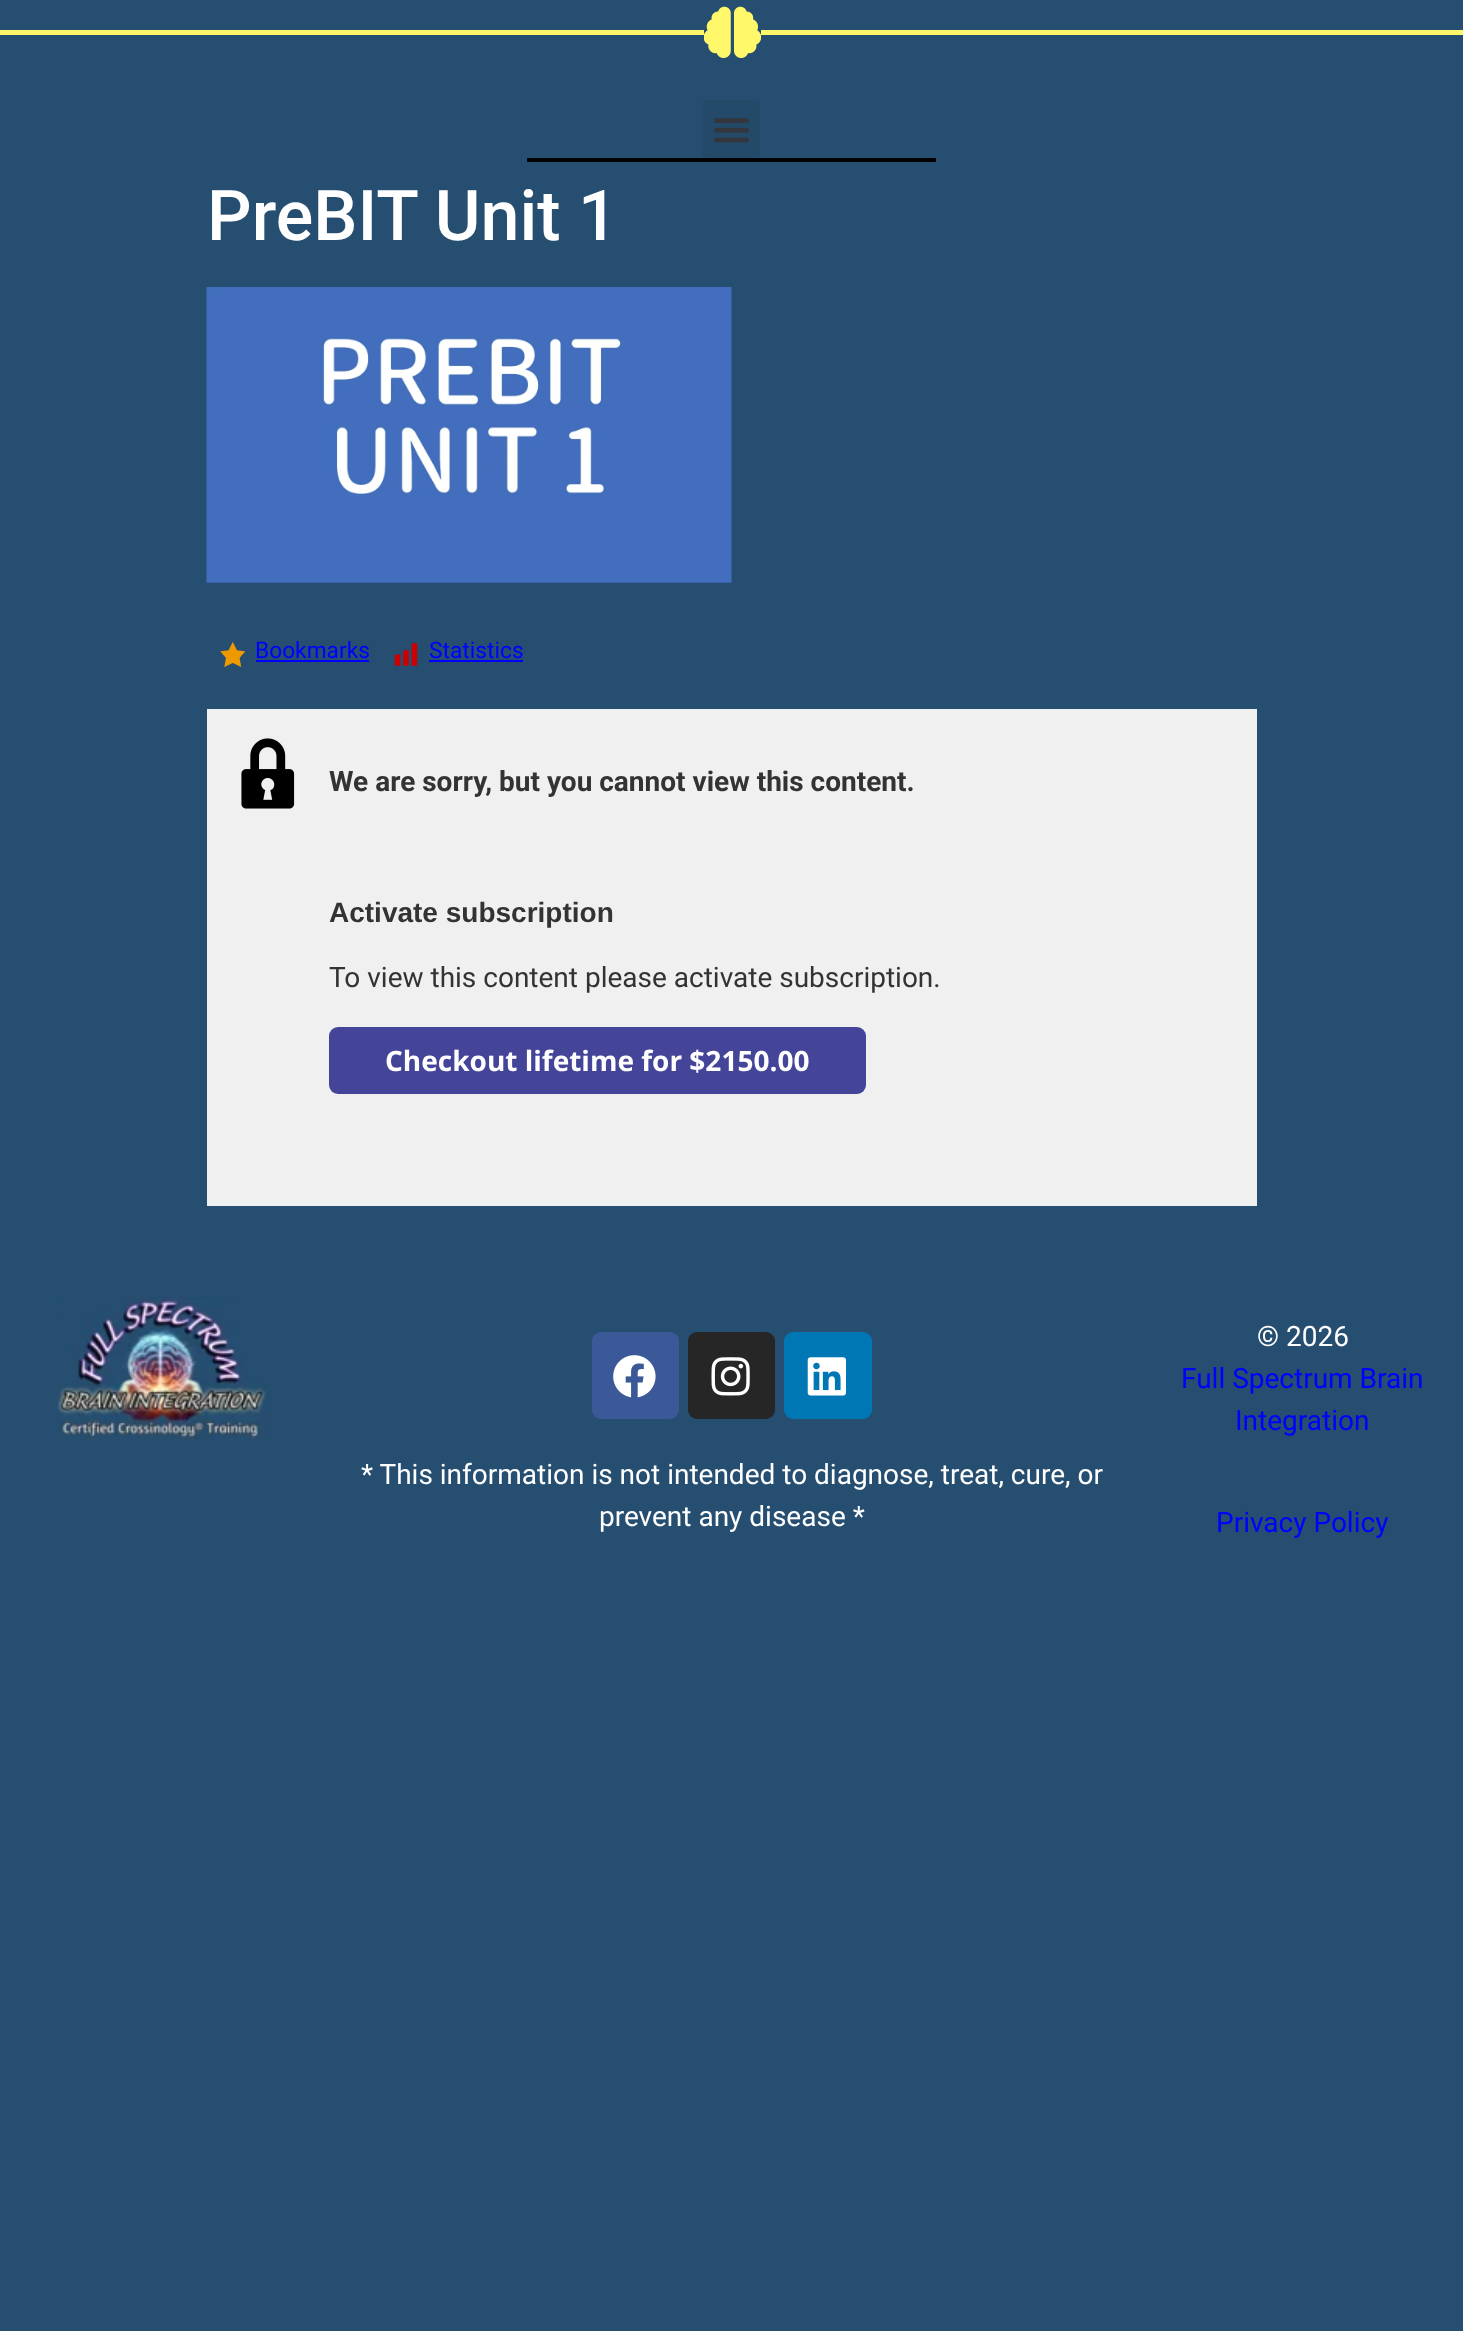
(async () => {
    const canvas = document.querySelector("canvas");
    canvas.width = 1463;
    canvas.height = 2331;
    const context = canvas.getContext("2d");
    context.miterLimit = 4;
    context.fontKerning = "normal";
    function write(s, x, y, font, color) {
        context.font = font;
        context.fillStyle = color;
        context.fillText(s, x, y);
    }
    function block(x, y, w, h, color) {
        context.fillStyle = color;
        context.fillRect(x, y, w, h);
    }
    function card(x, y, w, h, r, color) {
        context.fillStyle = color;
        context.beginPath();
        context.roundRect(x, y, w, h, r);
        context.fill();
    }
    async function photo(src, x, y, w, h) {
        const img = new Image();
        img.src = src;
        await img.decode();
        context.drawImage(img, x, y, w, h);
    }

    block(0, 0, 1463, 2331, "rgb(38, 78, 112)");
    block(0, 30, 704, 5, "rgb(255, 248, 107)");
    await photo("media/1.png", 704, 6, 57, 52);
    block(761, 30, 702, 5, "rgb(255, 248, 107)");
    block(527, 158, 409, 4, "rgb(0, 0, 0)");
    card(702, 100, 58, 58, 5, "rgb(36, 74, 106)");
    await photo("media/2.png", 714, 118, 35, 25);
    write("PreBIT Unit 1", 207, 240, "500 70px Roboto", "rgb(255, 255, 255)");
    await photo("media/3.png", 206, 287, 526, 296);
    await photo("media/4.png", 220, 642, 26, 25);
    write("Bookmarks", 255, 658, "22.75px Roboto", "rgb(0, 0, 255)");
    block(256, 660, 113, 2, "rgb(0, 0, 255)");
    await photo("media/5.png", 394, 643, 24, 23);
    write("Statistics", 429, 658, "22.75px Roboto", "rgb(0, 0, 255)");
    block(429, 660, 94, 2, "rgb(0, 0, 255)");
    block(207, 709, 1050, 497, "rgb(240, 240, 240)");
    await photo("media/6.png", 241, 738, 54, 71);
    write("We are sorry, but you cannot view this content.", 329, 791, "bold 28px Roboto", "rgb(51, 51, 51)");
    write("Activate subscription", 329, 922, "bold 28px Liberation Sans", "rgb(51, 51, 51)");
    write("To view this content please activate subscription.", 329, 987, "28px Roboto", "rgb(51, 51, 51)");
    card(329, 1027, 537, 67, 9, "rgb(68, 68, 153)");
    write("Checkout lifetime for $2150.00", 385, 1071, "bold 28px Open Sans", "rgb(255, 255, 255)");
    await photo("media/7.png", 57, 1297, 214, 143);
    card(592, 1332, 87, 87, 9, "rgb(59, 89, 152)");
    await photo("media/8.png", 613, 1355, 43, 43);
    card(688, 1332, 87, 87, 9, "rgb(38, 38, 38)");
    await photo("media/9.png", 711, 1357, 39, 39);
    card(784, 1332, 88, 87, 9, "rgb(0, 119, 181)");
    await photo("media/10.png", 807, 1357, 39, 39);
    write("* This information is not intended to diagnose, treat, cure, or", 361, 1484, "28px Roboto", "rgb(255, 255, 255)");
    write("prevent any disease *", 599, 1526, "28px Roboto", "rgb(255, 255, 255)");
    write("© 2026", 1257, 1346, "28px Roboto", "rgb(255, 255, 255)");
    write("Full Spectrum Brain", 1181, 1388, "28px Roboto", "rgb(0, 0, 255)");
    write("Integration", 1235, 1430, "28px Roboto", "rgb(0, 0, 255)");
    write("Privacy Policy", 1216, 1532, "28px Roboto", "rgb(0, 0, 255)");
})();
